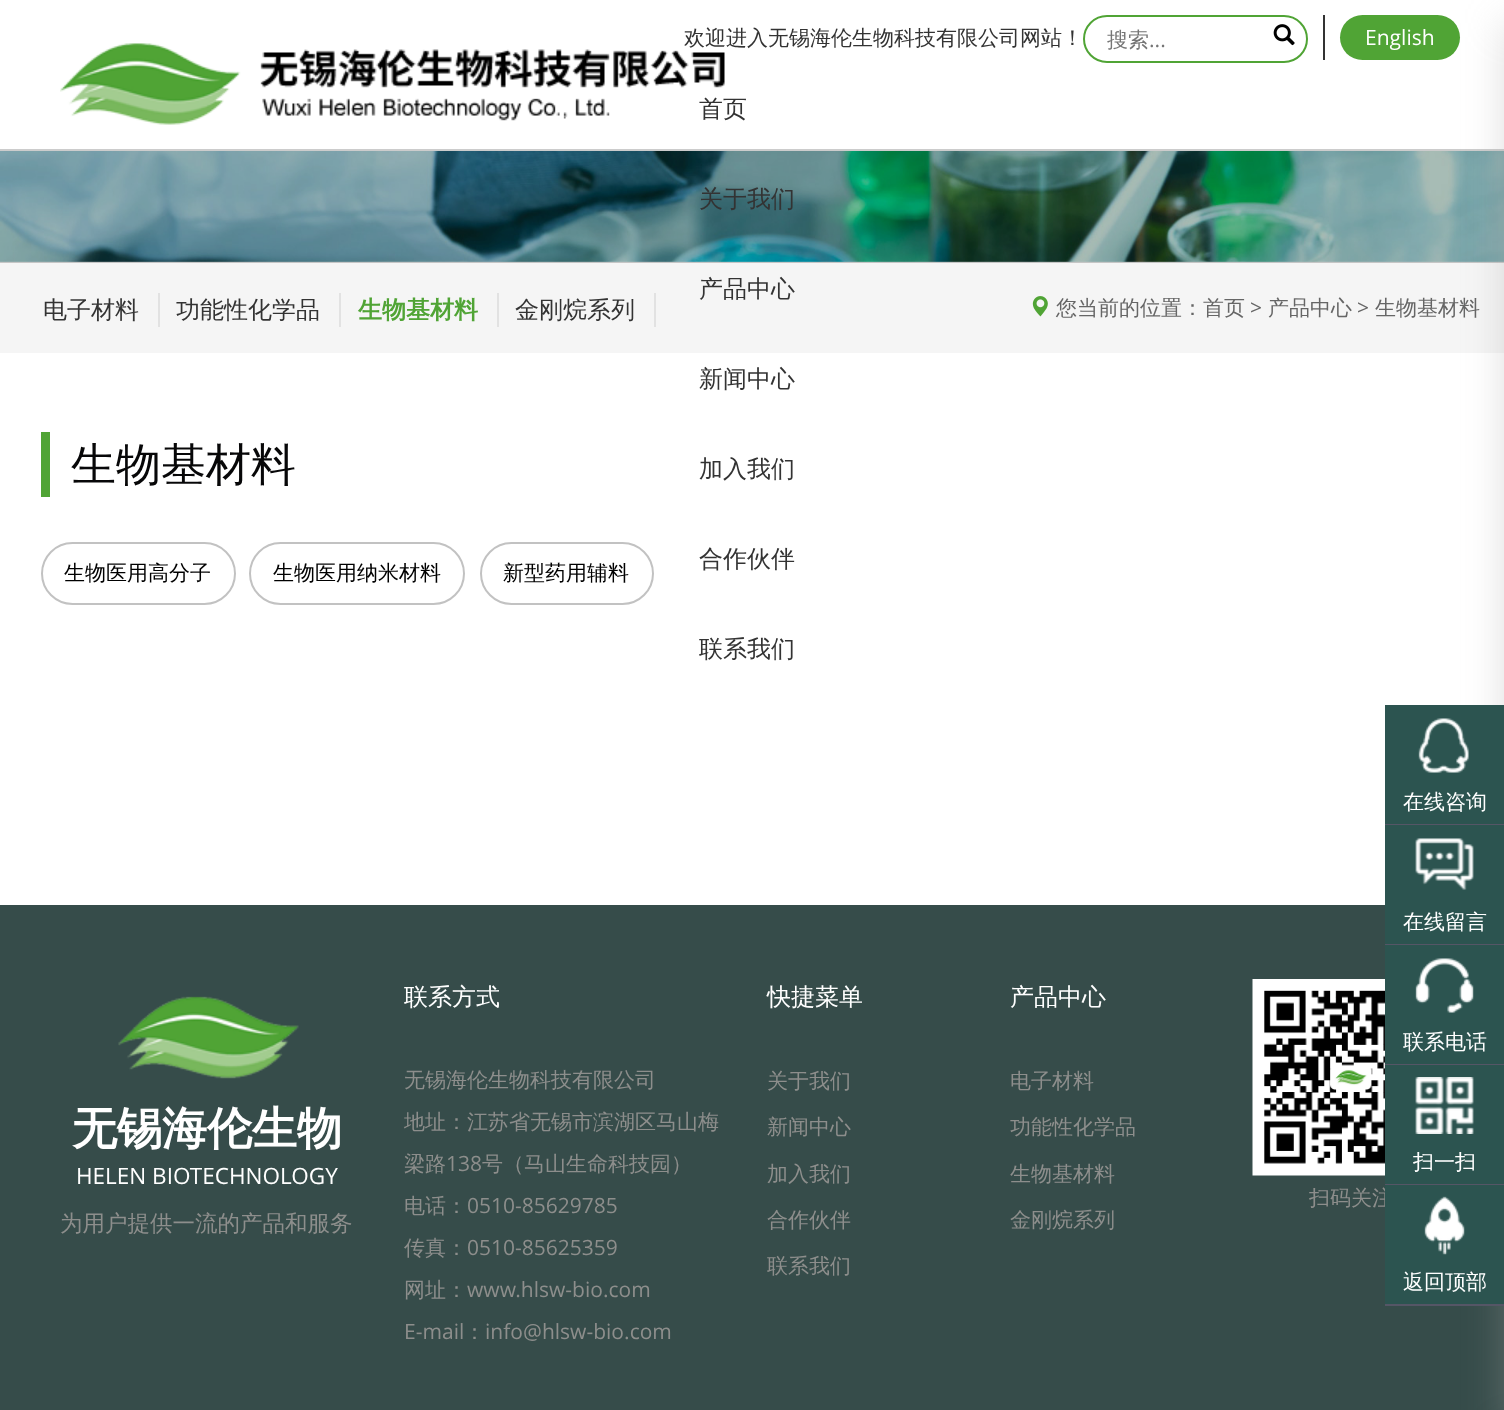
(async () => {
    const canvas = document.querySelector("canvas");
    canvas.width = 1504;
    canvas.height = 1410;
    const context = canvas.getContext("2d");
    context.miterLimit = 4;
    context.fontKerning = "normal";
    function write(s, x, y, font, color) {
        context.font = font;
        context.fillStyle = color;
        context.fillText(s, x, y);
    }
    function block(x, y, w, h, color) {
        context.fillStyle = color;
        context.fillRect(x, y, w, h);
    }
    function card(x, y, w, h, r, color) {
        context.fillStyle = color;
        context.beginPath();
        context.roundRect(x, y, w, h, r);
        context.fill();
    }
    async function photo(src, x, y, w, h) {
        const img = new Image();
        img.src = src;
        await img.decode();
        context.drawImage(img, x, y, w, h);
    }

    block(0, 0, 1504, 1410, "rgb(255, 255, 255)");
    block(0, 149, 1504, 2, "rgb(204, 204, 204)");
    await photo("media/1.png", 60, 43, 665, 82);
    write("欢迎进入无锡海伦生物科技有限公司网站！", 684, 45, "500 21px WenQuanYi Zen Hei", "rgb(51, 51, 51)");
    context.beginPath();
    context.roundRect(1084, 16, 223, 46, 23);
    context.strokeStyle = "rgb(80, 164, 53)";
    context.lineWidth = 2;
    context.stroke();
    write("搜索", 1107, 47, "500 21px WenQuanYi Zen Hei", "rgb(117, 117, 117)");
    write("...", 1149, 47, "21px Open Sans", "rgb(117, 117, 117)");
    await photo("media/2.png", 1273, 24, 22, 22);
    block(1323, 15, 2, 45, "rgb(51, 51, 51)");
    card(1340, 15, 120, 45, 22.5, "rgb(80, 164, 53)");
    write("English", 1365, 45, "21px Open Sans", "rgb(255, 255, 255)");
    write("首页", 699, 117, "500 24px WenQuanYi Zen Hei", "rgb(51, 51, 51)");
    block(0, 261, 1504, 2, "rgb(198, 198, 198)");
    await photo("media/3.png", 0, 151, 1504, 111);
    write("关于我们", 699, 207, "500 24px WenQuanYi Zen Hei", "rgb(51, 51, 51)");
    block(0, 263, 1504, 90, "rgb(245, 245, 245)");
    write("产品中心", 699, 297, "500 24px WenQuanYi Zen Hei", "rgb(51, 51, 51)");
    write("新闻中心", 699, 387, "500 24px WenQuanYi Zen Hei", "rgb(51, 51, 51)");
    write("加入我们", 699, 477, "500 24px WenQuanYi Zen Hei", "rgb(51, 51, 51)");
    write("合作伙伴", 699, 567, "500 24px WenQuanYi Zen Hei", "rgb(51, 51, 51)");
    write("联系我们", 699, 657, "500 24px WenQuanYi Zen Hei", "rgb(51, 51, 51)");
    block(0, 905, 1504, 505, "rgb(54, 76, 74)");
    context.fillStyle = "rgba(167, 165, 165, 0.38)";
    context.filter = "blur(20px)";
    context.beginPath();
    context.rect(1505, 23, 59, 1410);
    context.fill();
    context.filter = "none";
    block(158, 293, 2, 34, "rgb(226, 226, 226)");
    write("电子材料", 43, 318, "500 24px WenQuanYi Zen Hei", "rgb(51, 51, 51)");
    block(339, 293, 2, 34, "rgb(226, 226, 226)");
    write("功能性化学品", 176, 318, "500 24px WenQuanYi Zen Hei", "rgb(51, 51, 51)");
    block(497, 293, 2, 34, "rgb(226, 226, 226)");
    write("生物基材料", 358, 318, "bold 24px WenQuanYi Zen Hei", "rgb(80, 164, 53)");
    block(654, 293, 2, 34, "rgb(226, 226, 226)");
    write("金刚烷系列", 515, 318, "500 24px WenQuanYi Zen Hei", "rgb(51, 51, 51)");
    await photo("media/4.png", 1032, 296, 16, 21);
    write("您当前的位置：首页", 1056, 315, "500 21px WenQuanYi Zen Hei", "rgb(102, 102, 102)");
    write(">", 1250, 315, "21px Open Sans", "rgb(102, 102, 102)");
    write("产品中心", 1268, 315, "500 21px WenQuanYi Zen Hei", "rgb(102, 102, 102)");
    write(">", 1357, 315, "21px Open Sans", "rgb(102, 102, 102)");
    write("生物基材料", 1375, 315, "500 21px WenQuanYi Zen Hei", "rgb(102, 102, 102)");
    block(41, 432, 9, 65, "rgb(80, 164, 53)");
    write("生物基材料", 71, 480, "500 45px WenQuanYi Zen Hei", "rgb(7, 7, 8)");
    context.beginPath();
    context.roundRect(42, 543, 193, 61, 30.5);
    context.strokeStyle = "rgb(194, 194, 194)";
    context.stroke();
    write("生物医用高分子", 64, 580, "500 21px WenQuanYi Zen Hei", "rgb(0, 0, 0)");
    context.beginPath();
    context.roundRect(250, 543, 214, 61, 30.5);
    context.stroke();
    write("生物医用纳米材料", 273, 580, "500 21px WenQuanYi Zen Hei", "rgb(0, 0, 0)");
    context.beginPath();
    context.roundRect(481, 543, 172, 61, 30.5);
    context.stroke();
    write("新型药用辅料", 503, 580, "500 21px WenQuanYi Zen Hei", "rgb(0, 0, 0)");
    await photo("media/5.png", 118, 996, 181, 83);
    write("无锡海伦生物", 72, 1144, "bold 45px WenQuanYi Zen Hei", "rgb(255, 255, 255)");
    write("HELEN BIOTECHNOLOGY", 76, 1184, "22.5px Open Sans", "rgb(255, 255, 255)");
    write("为用户提供一流的产品和服务", 60, 1231, "500 22.5px WenQuanYi Zen Hei", "rgb(141, 142, 140)");
    write("联系方式", 404, 1005, "500 24px WenQuanYi Zen Hei", "rgb(255, 255, 255)");
    write("无锡海伦生物科技有限公司", 404, 1087, "500 21px WenQuanYi Zen Hei", "rgb(141, 142, 140)");
    write("地址：江苏省无锡市滨湖区马山梅", 404, 1129, "500 21px WenQuanYi Zen Hei", "rgb(141, 142, 140)");
    write("梁路", 404, 1171, "500 21px WenQuanYi Zen Hei", "rgb(141, 142, 140)");
    write("138", 446, 1171, "21px Open Sans", "rgb(141, 142, 140)");
    write("号（马山生命科技园）", 482, 1171, "500 21px WenQuanYi Zen Hei", "rgb(141, 142, 140)");
    write("电话：", 404, 1213, "500 21px WenQuanYi Zen Hei", "rgb(141, 142, 140)");
    write("0510-85629785", 467, 1213, "21px Open Sans", "rgb(141, 142, 140)");
    write("传真：", 404, 1255, "500 21px WenQuanYi Zen Hei", "rgb(141, 142, 140)");
    write("0510-85625359", 467, 1255, "21px Open Sans", "rgb(141, 142, 140)");
    write("网址：", 404, 1297, "500 21px WenQuanYi Zen Hei", "rgb(141, 142, 140)");
    write("www.hlsw-bio.com", 467, 1297, "21px Open Sans", "rgb(141, 142, 140)");
    write("E-mail", 404, 1339, "21px Open Sans", "rgb(141, 142, 140)");
    write("：", 464, 1339, "500 21px WenQuanYi Zen Hei", "rgb(141, 142, 140)");
    write("info@hlsw-bio.com", 485, 1339, "21px Open Sans", "rgb(141, 142, 140)");
    write("快捷菜单", 767, 1005, "500 24px WenQuanYi Zen Hei", "rgb(255, 255, 255)");
    write("关于我们", 767, 1088, "500 21px WenQuanYi Zen Hei", "rgb(141, 142, 140)");
    write("新闻中心", 767, 1134, "500 21px WenQuanYi Zen Hei", "rgb(141, 142, 140)");
    write("加入我们", 767, 1181, "500 21px WenQuanYi Zen Hei", "rgb(141, 142, 140)");
    write("合作伙伴", 767, 1227, "500 21px WenQuanYi Zen Hei", "rgb(141, 142, 140)");
    write("联系我们", 767, 1273, "500 21px WenQuanYi Zen Hei", "rgb(141, 142, 140)");
    write("产品中心", 1010, 1005, "500 24px WenQuanYi Zen Hei", "rgb(255, 255, 255)");
    write("电子材料", 1010, 1088, "500 21px WenQuanYi Zen Hei", "rgb(141, 142, 140)");
    write("功能性化学品", 1010, 1134, "500 21px WenQuanYi Zen Hei", "rgb(141, 142, 140)");
    write("生物基材料", 1010, 1181, "500 21px WenQuanYi Zen Hei", "rgb(141, 142, 140)");
    write("金刚烷系列", 1010, 1227, "500 21px WenQuanYi Zen Hei", "rgb(141, 142, 140)");
    await photo("media/6.png", 1252, 979, 133, 197);
    write("扫码关注", 1309, 1205, "500 21px WenQuanYi Zen Hei", "rgb(141, 142, 140)");
    block(1385, 705, 119, 119, "rgb(44, 84, 80)");
    await photo("media/7.png", 1418, 718, 51, 55);
    block(1385, 824, 119, 1, "rgb(85, 86, 102)");
    write("在线咨询", 1403, 809, "500 21px WenQuanYi Zen Hei", "rgb(255, 255, 255)");
    block(1385, 825, 119, 119, "rgb(44, 84, 80)");
    await photo("media/8.png", 1415, 838, 59, 52);
    block(1385, 944, 119, 1, "rgb(85, 86, 102)");
    write("在线留言", 1403, 929, "500 21px WenQuanYi Zen Hei", "rgb(255, 255, 255)");
    block(1385, 945, 119, 119, "rgb(44, 84, 80)");
    await photo("media/9.png", 1415, 958, 59, 55);
    block(1385, 1064, 119, 1, "rgb(85, 86, 102)");
    write("联系电话", 1403, 1049, "500 21px WenQuanYi Zen Hei", "rgb(255, 255, 255)");
    block(1385, 1065, 119, 119, "rgb(44, 84, 80)");
    await photo("media/10.png", 1415, 1077, 59, 57);
    block(1385, 1184, 119, 1, "rgb(85, 86, 102)");
    write("扫一扫", 1413, 1169, "500 21px WenQuanYi Zen Hei", "rgb(255, 255, 255)");
    block(1385, 1185, 119, 119, "rgb(44, 84, 80)");
    await photo("media/11.png", 1424, 1196, 41, 59);
    block(1385, 1304, 119, 2, "rgb(85, 86, 102)");
    write("返回顶部", 1403, 1289, "500 21px WenQuanYi Zen Hei", "rgb(255, 255, 255)");
})();
